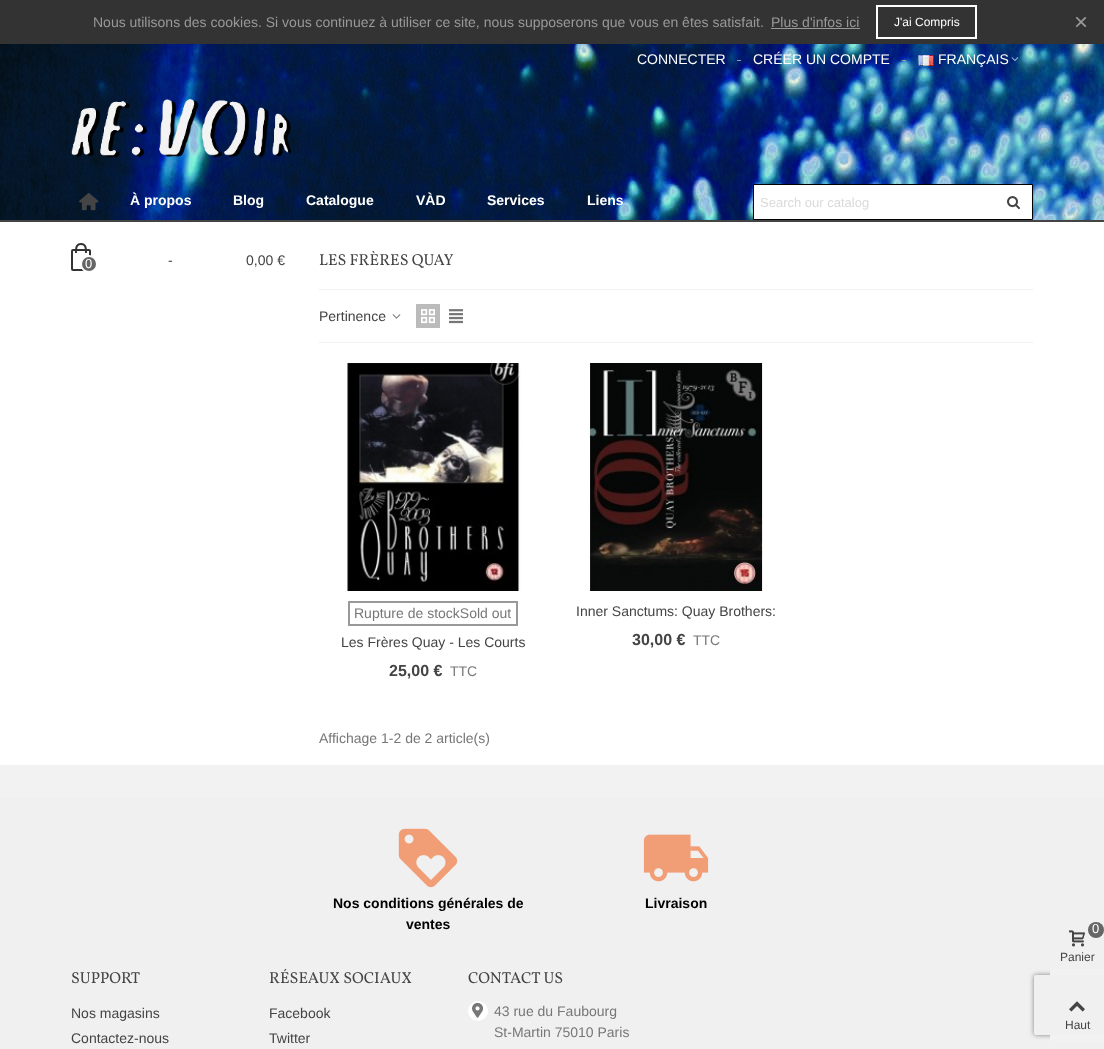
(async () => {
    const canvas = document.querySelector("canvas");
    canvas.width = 1104;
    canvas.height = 1049;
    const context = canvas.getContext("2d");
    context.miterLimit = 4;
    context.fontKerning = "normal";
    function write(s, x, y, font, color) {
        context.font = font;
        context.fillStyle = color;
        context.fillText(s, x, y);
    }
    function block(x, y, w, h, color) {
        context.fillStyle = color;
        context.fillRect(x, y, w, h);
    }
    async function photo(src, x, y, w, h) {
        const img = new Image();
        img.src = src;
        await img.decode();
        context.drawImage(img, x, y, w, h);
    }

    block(0, 0, 1104, 1049, "rgb(255, 255, 255)");
    await photo("media/1.png", 0, 44, 1104, 176);
    block(0, 0, 1104, 44, "rgb(51, 51, 51)");
    write("Nous utilisons des cookies. Si vous continuez à utiliser ce site, nous supposerons que vous en êtes satisfait.", 93, 27, "14px Liberation Sans", "rgb(153, 153, 153)");
    write("Plus d'infos ici", 771, 27, "14px Liberation Sans", "rgb(153, 153, 153)");
    block(771, 28, 89, 1, "rgb(153, 153, 153)");
    context.strokeStyle = "rgb(255, 255, 255)";
    context.lineWidth = 2;
    context.strokeRect(877, 6, 99, 32);
    write("J'ai Compris", 894, 26, "12px Liberation Sans", "rgb(255, 255, 255)");
    write("×", 1074, 30, "24px Liberation Sans", "rgb(153, 153, 153)");
    write("CONNECTER", 637, 64, "14px Liberation Sans", "rgb(255, 255, 255)");
    block(737, 60, 4, 1, "rgb(153, 153, 153)");
    write("CRÉER UN COMPTE", 753, 64, "14px Liberation Sans", "rgb(255, 255, 255)");
    block(902, 60, 4, 1, "rgb(153, 153, 153)");
    await photo("media/2.png", 918, 55, 16, 11);
    write("FRANÇAIS", 938, 64, "14px Liberation Sans", "rgb(255, 255, 255)");
    await photo("media/3.png", 1011, 57, 8, 4);
    await photo("media/4.png", 71, 99, 220, 59);
    block(0, 220, 1104, 2, "rgb(68, 68, 68)");
    await photo("media/5.png", 79, 192, 20, 19);
    write("À propos", 130, 205, "bold 14px Liberation Sans", "rgb(255, 255, 255)");
    write("Blog", 233, 205, "bold 14px Liberation Sans", "rgb(255, 255, 255)");
    write("Catalogue", 306, 205, "bold 14px Liberation Sans", "rgb(255, 255, 255)");
    write("VÀD", 416, 205, "bold 14px Liberation Sans", "rgb(255, 255, 255)");
    write("Services", 487, 205, "bold 14px Liberation Sans", "rgb(255, 255, 255)");
    write("Liens", 587, 205, "bold 14px Liberation Sans", "rgb(255, 255, 255)");
    context.beginPath();
    context.rect(753.5, 184.5, 279, 35);
    context.fill();
    context.strokeStyle = "rgb(0, 0, 0)";
    context.lineWidth = 1;
    context.stroke();
    write("Search our catalog", 760, 207, "13px Liberation Sans", "rgb(218, 218, 218)");
    await photo("media/6.png", 1007, 196, 13, 14);
    context.beginPath();
    context.roundRect(72, 250, 18, 20, 1);
    context.strokeStyle = "rgb(51, 51, 51)";
    context.lineWidth = 2;
    context.stroke();
    context.fillStyle = "rgb(51, 51, 51)";
    context.beginPath();
    context.moveTo(81, 243);
    context.bezierCurveTo(87, 243, 87, 248.5, 87, 253);
    context.lineTo(75, 253);
    context.bezierCurveTo(75, 248.5, 75, 243, 81, 243);
    context.closePath();
    context.moveTo(81, 245);
    context.bezierCurveTo(85.5, 245, 85, 250, 85, 253);
    context.lineTo(77, 253);
    context.bezierCurveTo(77, 250, 76.5, 245, 81, 245);
    context.closePath();
    context.fill("evenodd");
    context.fillStyle = "rgb(102, 102, 102)";
    context.beginPath();
    context.arc(89, 264, 8, 0, Math.PI * 2);
    context.fill();
    context.strokeStyle = "rgb(255, 255, 255)";
    context.stroke();
    write("0", 85, 268, "13px Liberation Sans", "rgb(255, 255, 255)");
    write("-", 168, 265, "14px Liberation Sans", "rgb(68, 68, 68)");
    write("0,00 €", 246, 265, "14px Liberation Sans", "rgb(68, 68, 68)");
    write("LES FRÈRES QUAY", 319, 265, "16px Vollkorn", "rgb(68, 68, 68)");
    block(319, 289, 714, 1, "rgb(242, 242, 242)");
    block(319, 342, 714, 1, "rgb(242, 242, 242)");
    write("Pertinence", 319, 321, "14px Liberation Sans", "rgb(68, 68, 68)");
    await photo("media/7.png", 392, 314, 9, 5);
    block(416, 304, 24, 24, "rgb(187, 187, 187)");
    await photo("media/8.png", 421, 309, 14, 15);
    await photo("media/9.png", 449, 309, 14, 15);
    await photo("media/10.png", 347, 363, 174, 228);
    context.strokeStyle = "rgb(153, 153, 153)";
    context.strokeRect(349, 602, 168, 23);
    write("Rupture de stockSold out", 354, 618, "14px Liberation Sans", "rgb(119, 119, 119)");
    write("Les Frères Quay - Les Courts", 341, 647, "14px Liberation Sans", "rgb(68, 68, 68)");
    write("25,00 €", 389, 676, "bold 16px Liberation Sans", "rgb(68, 68, 68)");
    write("TTC", 450, 676, "14px Liberation Sans", "rgb(119, 119, 119)");
    await photo("media/11.png", 588, 363, 175, 228);
    write("Inner Sanctums: Quay Brothers:", 576, 616, "14px Liberation Sans", "rgb(68, 68, 68)");
    write("30,00 €", 632, 645, "bold 16px Liberation Sans", "rgb(68, 68, 68)");
    write("TTC", 693, 645, "14px Liberation Sans", "rgb(119, 119, 119)");
    write("Affichage 1-2 de 2 article(s)", 319, 743, "14px Liberation Sans", "rgb(119, 119, 119)");
    block(0, 765, 1104, 32, "rgb(242, 242, 242)");
    block(0, 797, 1104, 252, "rgb(240, 240, 240)");
    context.save();
    context.beginPath();
    context.moveTo(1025, 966);
    context.lineTo(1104, 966);
    context.lineTo(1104, 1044);
    context.lineTo(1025, 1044);
    context.closePath();
    context.moveTo(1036, 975);
    context.lineTo(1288, 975);
    context.bezierCurveTo(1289, 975, 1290, 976, 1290, 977);
    context.lineTo(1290, 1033);
    context.bezierCurveTo(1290, 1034, 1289, 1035, 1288, 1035);
    context.lineTo(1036, 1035);
    context.bezierCurveTo(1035, 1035, 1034, 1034, 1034, 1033);
    context.lineTo(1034, 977);
    context.bezierCurveTo(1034, 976, 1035, 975, 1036, 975);
    context.closePath();
    context.clip("evenodd");
    context.fillStyle = "rgb(128, 128, 128)";
    context.filter = "blur(2.5px)";
    context.beginPath();
    context.roundRect(1034, 975, 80, 60, 2);
    context.fill();
    context.filter = "none";
    context.restore();
    await photo("media/12.png", 398, 828, 60, 60);
    write("Nos conditions générales de", 333, 908, "bold 14px Liberation Sans", "rgb(0, 0, 0)");
    write("ventes", 406, 929, "bold 14px Liberation Sans", "rgb(0, 0, 0)");
    await photo("media/13.png", 643, 834, 66, 48);
    write("Livraison", 645, 908, "bold 14px Liberation Sans", "rgb(0, 0, 0)");
    write("SUPPORT", 71, 983, "16px Vollkorn", "rgb(68, 68, 68)");
    write("Nos magasins", 71, 1018, "14px Liberation Sans", "rgb(68, 68, 68)");
    write("Contactez-nous", 71, 1043, "14px Liberation Sans", "rgb(68, 68, 68)");
    write("RÉSEAUX SOCIAUX", 269, 983, "16px Vollkorn", "rgb(68, 68, 68)");
    write("Facebook", 269, 1018, "14px Liberation Sans", "rgb(68, 68, 68)");
    write("Twitter", 269, 1043, "14px Liberation Sans", "rgb(68, 68, 68)");
    write("CONTACT US", 468, 983, "16px Vollkorn", "rgb(68, 68, 68)");
    context.fillStyle = "rgb(255, 255, 255)";
    context.beginPath();
    context.arc(478, 1011, 10, 0, Math.PI * 2);
    context.fill();
    await photo("media/14.png", 472, 1002, 11, 16);
    write("43 rue du Faubourg", 494, 1016, "14px Liberation Sans", "rgb(119, 119, 119)");
    write("St-Martin 75010 Paris", 494, 1037, "14px Liberation Sans", "rgb(119, 119, 119)");
    block(1050, 969, 54, 6, "rgb(242, 242, 242)");
    context.fillStyle = "rgb(102, 102, 102)";
    context.beginPath();
    context.arc(1096, 930, 8, 0, Math.PI * 2);
    context.fill();
    write("0", 1092, 933, "13px Liberation Sans", "rgb(255, 255, 255)");
    await photo("media/15.png", 1069, 930, 16, 17);
    write("Panier", 1060, 961, "12px Liberation Sans", "rgb(68, 68, 68)");
    block(1050, 1035, 54, 6, "rgb(242, 242, 242)");
    await photo("media/16.png", 1069, 1001, 16, 11);
    write("Haut", 1065, 1029, "12px Liberation Sans", "rgb(68, 68, 68)");
})();
